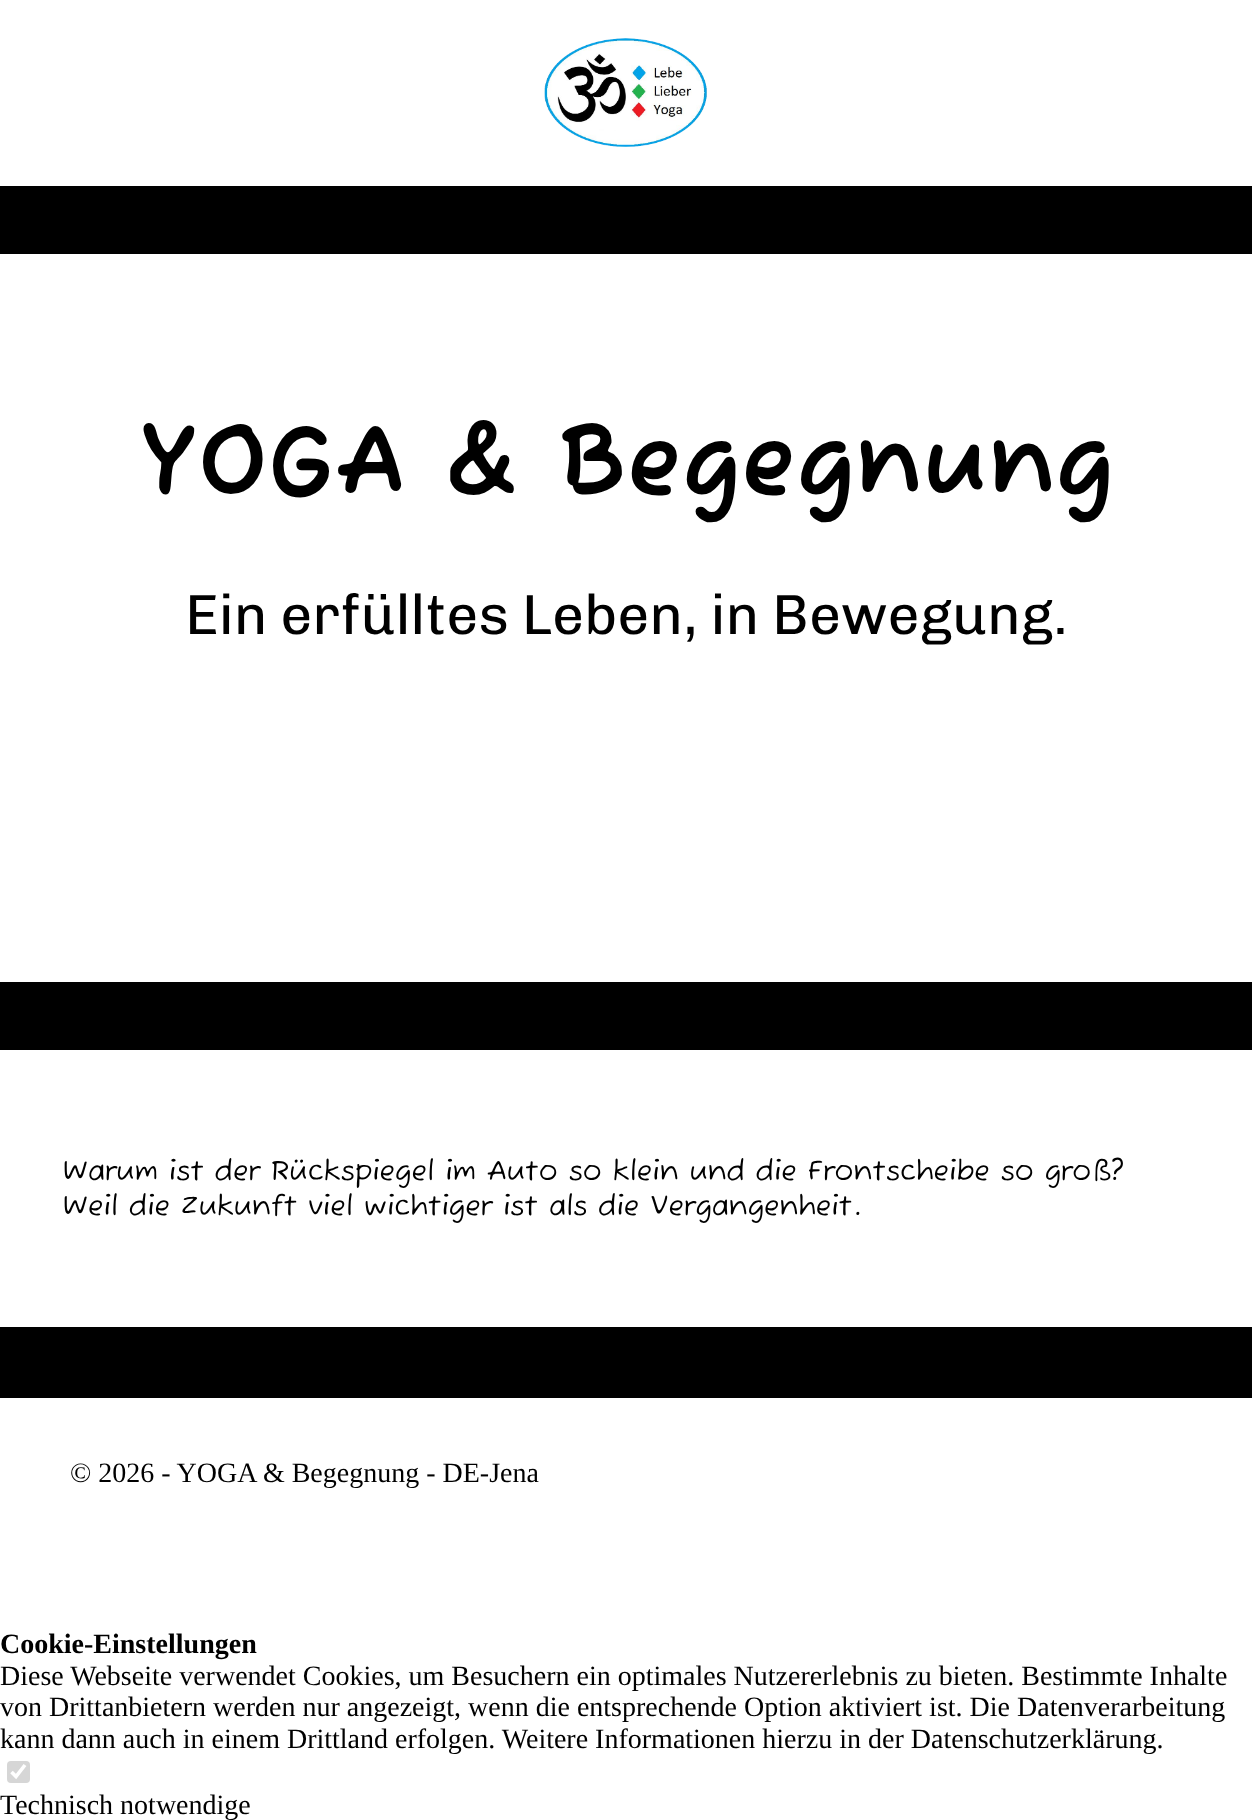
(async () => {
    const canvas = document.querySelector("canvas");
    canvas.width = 1252;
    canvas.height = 1820;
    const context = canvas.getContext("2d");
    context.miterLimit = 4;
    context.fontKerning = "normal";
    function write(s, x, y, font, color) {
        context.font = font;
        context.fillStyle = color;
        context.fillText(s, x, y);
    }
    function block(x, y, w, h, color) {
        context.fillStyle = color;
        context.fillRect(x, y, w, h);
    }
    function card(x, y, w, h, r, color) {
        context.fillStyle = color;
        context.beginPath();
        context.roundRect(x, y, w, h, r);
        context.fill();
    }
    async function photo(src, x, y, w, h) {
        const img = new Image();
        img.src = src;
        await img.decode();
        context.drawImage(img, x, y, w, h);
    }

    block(0, 0, 1252, 1820, "rgb(255, 255, 255)");
    await photo("media/1.png", 544, 38, 163, 109);
    block(0, 186, 1252, 68, "rgb(0, 0, 0)");
    write("YOGA & Begegnung", 139, 494, "bold 100.25px Fuzzy Bubbles", "rgb(0, 0, 0)");
    write("Ein erfülltes Leben, in Bewegung.", 185, 634, "56.4px Chivo", "rgb(0, 0, 0)");
    block(0, 982, 1252, 68, "rgb(0, 0, 0)");
    write("Warum ist der Rückspiegel im Auto so klein und die Frontscheibe so groß?", 63, 1180, "28px Fuzzy Bubbles", "rgb(0, 0, 0)");
    write("Weil die Zukunft viel wichtiger ist als die Vergangenheit.", 63, 1215, "28px Fuzzy Bubbles", "rgb(0, 0, 0)");
    block(0, 1327, 1252, 71, "rgb(0, 0, 0)");
    write("© 2026 - YOGA & Begegnung - DE-Jena", 70, 1482, "28px Liberation Serif", "rgb(0, 0, 0)");
    write("Cookie-Einstellungen", 0, 1653, "bold 28px Liberation Serif", "rgb(0, 0, 0)");
    write("Diese Webseite verwendet Cookies, um Besuchern ein optimales Nutzererlebnis zu bieten. Bestimmte Inhalte", 0, 1685, "28px Liberation Serif", "rgb(0, 0, 0)");
    write("von Drittanbietern werden nur angezeigt, wenn die entsprechende Option aktiviert ist. Die Datenverarbeitung", 0, 1716, "28px Liberation Serif", "rgb(0, 0, 0)");
    write("kann dann auch in einem Drittland erfolgen. Weitere Informationen hierzu in der Datenschutzerklärung.", 0, 1748, "28px Liberation Serif", "rgb(0, 0, 0)");
    card(7, 1761, 23, 22, 4, "rgb(214, 214, 214)");
    context.beginPath();
    context.moveTo(11.5, 1772);
    context.lineTo(16, 1776.5);
    context.lineTo(25, 1765);
    context.strokeStyle = "rgb(255, 255, 255)";
    context.lineWidth = 3.6;
    context.stroke();
    write("Technisch notwendige", 0, 1814, "28px Liberation Serif", "rgb(0, 0, 0)");
})();
